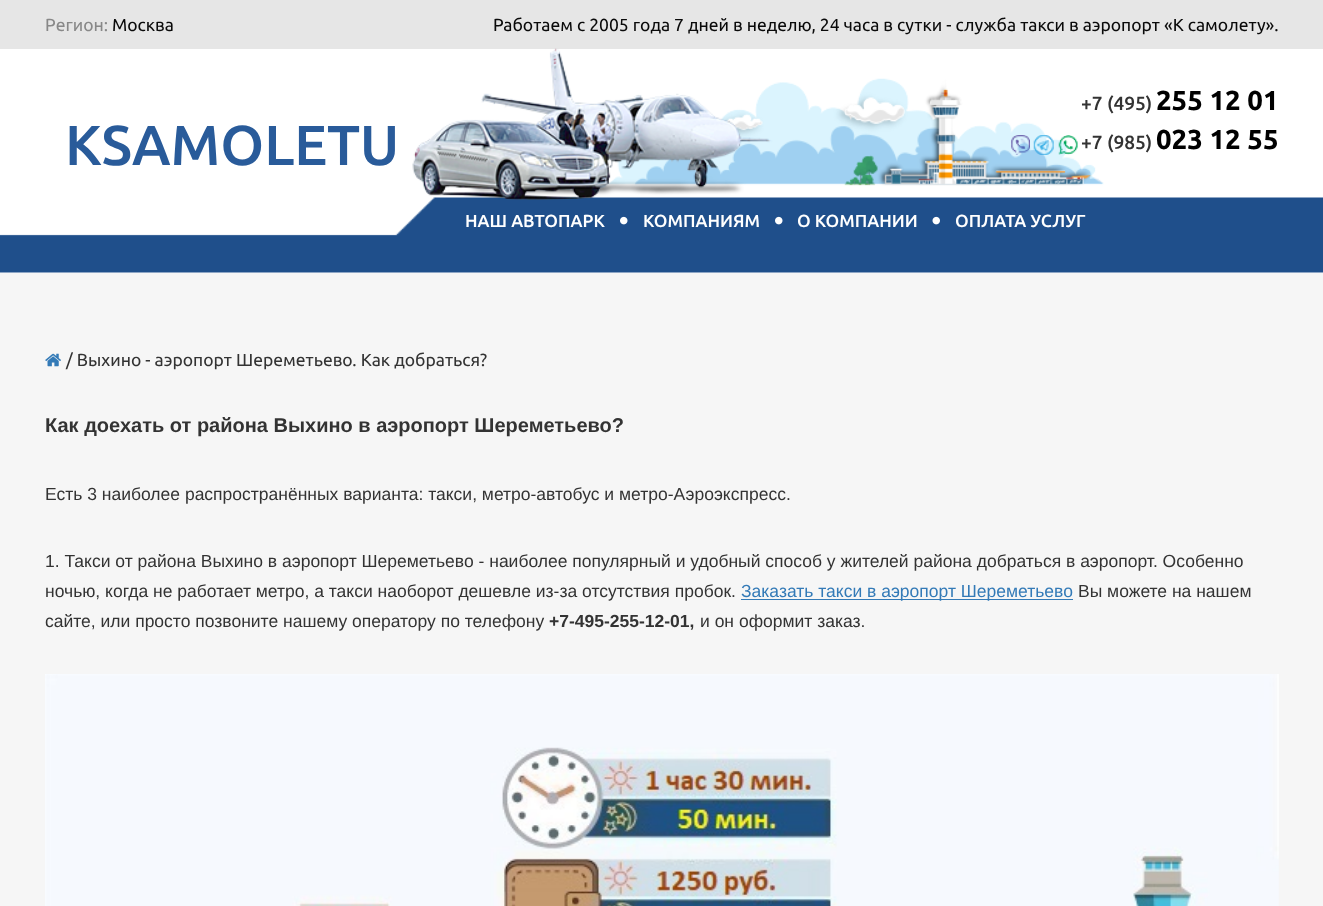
(async () => {
    const canvas = document.querySelector("canvas");
    canvas.width = 1323;
    canvas.height = 906;
    const context = canvas.getContext("2d");
    context.miterLimit = 4;
    context.fontKerning = "normal";
    function write(s, x, y, font, color) {
        context.font = font;
        context.fillStyle = color;
        context.fillText(s, x, y);
    }
    function block(x, y, w, h, color) {
        context.fillStyle = color;
        context.fillRect(x, y, w, h);
    }
    async function photo(src, x, y, w, h) {
        const img = new Image();
        img.src = src;
        await img.decode();
        context.drawImage(img, x, y, w, h);
    }

    block(0, 0, 1323, 906, "rgb(255, 255, 255)");
    block(0, 0, 1323, 49, "rgb(230, 230, 230)");
    write("Регион:", 45, 31, "17.5px Ubuntu", "rgb(136, 136, 136)");
    write("Москва", 112, 31, "17.5px Ubuntu", "rgb(10, 10, 10)");
    write("Работаем c 2005 года 7 дней в неделю, 24 часа в сутки - служба такси в аэропорт «К самолету».", 493, 31, "17.5px Ubuntu", "rgb(10, 10, 10)");
    write("KSAMOLETU", 65, 165, "500 56.25px Ubuntu", "rgb(41, 91, 154)");
    write("+7 (495)", 1081, 110, "500 19px Ubuntu", "rgb(51, 51, 51)");
    await photo("media/2.png", 1011, 135, 19, 20);
    await photo("media/3.png", 1033, 135, 21, 20);
    await photo("media/4.png", 1058, 135, 20, 20);
    write("+7 (985)", 1081, 149, "500 19px Ubuntu", "rgb(51, 51, 51)");
    await photo("media/5.png", 0, 197, 1323, 76);
    await photo("media/1.png", 412, 48, 692, 152);
    write("255 12 01", 1156, 110, "bold 27.5px Ubuntu", "rgb(0, 0, 0)");
    write("023 12 55", 1156, 149, "bold 27.5px Ubuntu", "rgb(0, 0, 0)");
    write("НАШ АВТОПАРК", 465, 227, "500 17.5px Ubuntu", "rgb(255, 255, 255)");
    await photo("media/6.png", 620, 216, 8, 9);
    write("КОМПАНИЯМ", 643, 227, "500 17.5px Ubuntu", "rgb(255, 255, 255)");
    await photo("media/6.png", 775, 216, 8, 9);
    write("О КОМПАНИИ", 797, 227, "500 17.5px Ubuntu", "rgb(255, 255, 255)");
    await photo("media/7.png", 932, 216, 8, 9);
    write("ОПЛАТА УСЛУГ", 955, 227, "500 17.5px Ubuntu", "rgb(255, 255, 255)");
    block(0, 273, 1323, 633, "rgb(246, 246, 246)");
    await photo("media/8.png", 45, 353, 16, 14);
    write("/ Выхино - аэропорт Шереметьево. Как добраться?", 66, 366, "17.5px Ubuntu", "rgb(51, 51, 51)");
    write("Как доехать от района Выхино в аэропорт Шереметьево?", 45, 432, "bold 20px Liberation Sans", "rgb(51, 51, 51)");
    write("Есть 3 наиболее распространённых варианта: такси, метро-автобус и метро-Аэроэкспресс.", 45, 500, "17.5px Liberation Sans", "rgb(51, 51, 51)");
    write("1. Такси от района Выхино в аэропорт Шереметьево - наиболее популярный и удобный способ у жителей района добраться в аэропорт. Особенно", 45, 567, "17.5px Liberation Sans", "rgb(51, 51, 51)");
    write("ночью, когда не работает метро, а такси наоборот дешевле из-за отсутствия пробок.", 45, 597, "17.5px Liberation Sans", "rgb(51, 51, 51)");
    block(741, 599, 332, 1, "rgb(51, 122, 183)");
    write("Заказать такси в аэропорт Шереметьево", 741, 597, "17.5px Liberation Sans", "rgb(51, 122, 183)");
    write("Вы можете на нашем", 1078, 597, "17.5px Liberation Sans", "rgb(51, 51, 51)");
    write("сайте, или просто позвоните нашему оператору по телефону", 45, 627, "17.5px Liberation Sans", "rgb(51, 51, 51)");
    write("+7-495-255-12-01,", 549, 627, "bold 17.5px Liberation Sans", "rgb(51, 51, 51)");
    write("и он оформит заказ.", 700, 627, "17.5px Liberation Sans", "rgb(51, 51, 51)");
    await photo("media/9.png", 45, 674, 1234, 232);
})();
